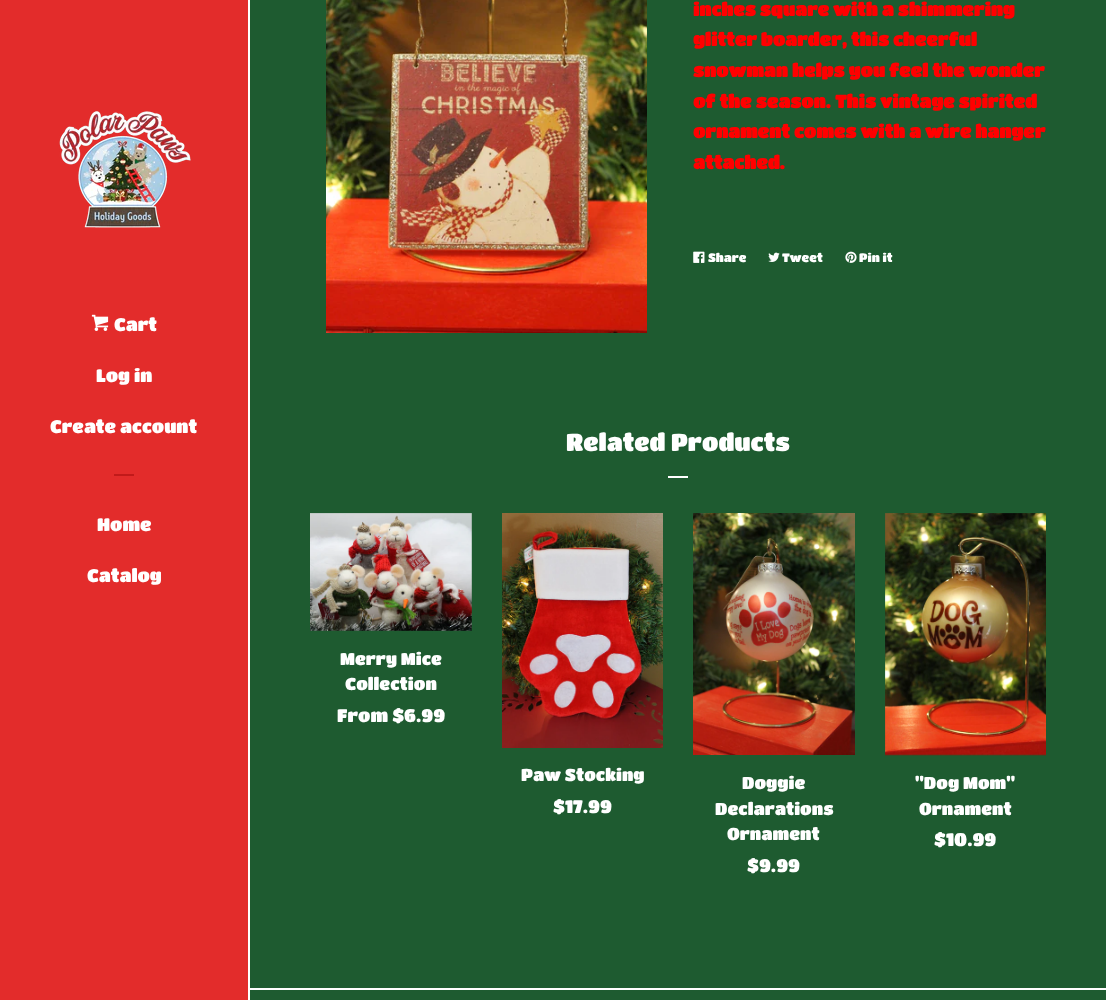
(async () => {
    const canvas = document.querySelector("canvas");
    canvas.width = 1106;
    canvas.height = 1000;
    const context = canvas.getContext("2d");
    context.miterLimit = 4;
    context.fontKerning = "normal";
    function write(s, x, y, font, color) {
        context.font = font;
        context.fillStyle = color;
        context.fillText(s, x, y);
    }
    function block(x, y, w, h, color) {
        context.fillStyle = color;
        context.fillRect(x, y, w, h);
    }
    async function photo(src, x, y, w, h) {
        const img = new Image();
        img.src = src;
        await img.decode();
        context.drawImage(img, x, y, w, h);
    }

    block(0, 0, 1106, 1000, "rgb(227, 44, 43)");
    block(248, 0, 2, 1000, "rgb(255, 255, 255)");
    await photo("media/1.png", 59, 111, 132, 117);
    await photo("media/2.png", 91, 314, 18, 17);
    write("Cart", 114, 331, "18px Titan One", "rgb(255, 255, 255)");
    write("Log in", 96, 382, "18px Titan One", "rgb(255, 255, 255)");
    write("Create account", 50, 433, "18px Titan One", "rgb(255, 255, 255)");
    block(114, 474, 20, 2, "rgb(193, 26, 26)");
    write("Home", 97, 531, "18px Titan One", "rgb(255, 255, 255)");
    write("Catalog", 87, 582, "18px Titan One", "rgb(255, 255, 255)");
    block(250, 0, 856, 1000, "rgb(30, 91, 48)");
    await photo("media/3.png", 326, 0, 321, 333);
    write("inches square with a shimmering", 693, 16, "bold 18px Titan One", "rgb(255, 0, 0)");
    write("glitter boarder, this cheerful", 693, 46, "bold 18px Titan One", "rgb(255, 0, 0)");
    write("snowman helps you feel the wonder", 693, 77, "bold 18px Titan One", "rgb(255, 0, 0)");
    write("of the season. This vintage spirited", 693, 108, "bold 18px Titan One", "rgb(255, 0, 0)");
    write("ornament comes with a wire hanger", 693, 138, "bold 18px Titan One", "rgb(255, 0, 0)");
    write("attached.", 693, 169, "bold 18px Titan One", "rgb(255, 0, 0)");
    await photo("media/4.png", 693, 251, 12, 12);
    write("Share", 708, 262, "12px Titan One", "rgb(255, 255, 255)");
    await photo("media/5.png", 768, 252, 12, 10);
    write("Tweet", 782, 262, "12px Titan One", "rgb(255, 255, 255)");
    await photo("media/6.png", 845, 251, 12, 12);
    write("Pin it", 859, 262, "12px Titan One", "rgb(255, 255, 255)");
    write("Related Products", 566, 451, "24px Titan One", "rgb(255, 255, 255)");
    block(668, 476, 20, 2, "rgb(255, 255, 255)");
    await photo("media/7.png", 310, 513, 162, 118);
    write("Merry Mice", 340, 665, "17px Titan One", "rgb(255, 255, 255)");
    write("Collection", 345, 690, "17px Titan One", "rgb(255, 255, 255)");
    write("From $6.99", 337, 722, "18px Titan One", "rgb(255, 255, 255)");
    await photo("media/8.png", 502, 513, 161, 235);
    write("Paw Stocking", 521, 781, "17px Titan One", "rgb(255, 255, 255)");
    write("$17.99", 553, 813, "18px Titan One", "rgb(255, 255, 255)");
    await photo("media/9.png", 693, 513, 162, 242);
    write("Doggie", 742, 789, "17px Titan One", "rgb(255, 255, 255)");
    write("Declarations", 715, 815, "17px Titan One", "rgb(255, 255, 255)");
    write("Ornament", 727, 840, "17px Titan One", "rgb(255, 255, 255)");
    write("$9.99", 747, 872, "18px Titan One", "rgb(255, 255, 255)");
    await photo("media/10.png", 885, 513, 161, 243);
    write("\"Dog Mom\"", 915, 789, "17px Titan One", "rgb(255, 255, 255)");
    write("Ornament", 919, 815, "17px Titan One", "rgb(255, 255, 255)");
    write("$10.99", 934, 846, "18px Titan One", "rgb(255, 255, 255)");
    block(250, 988, 856, 2, "rgb(255, 255, 255)");
})();
